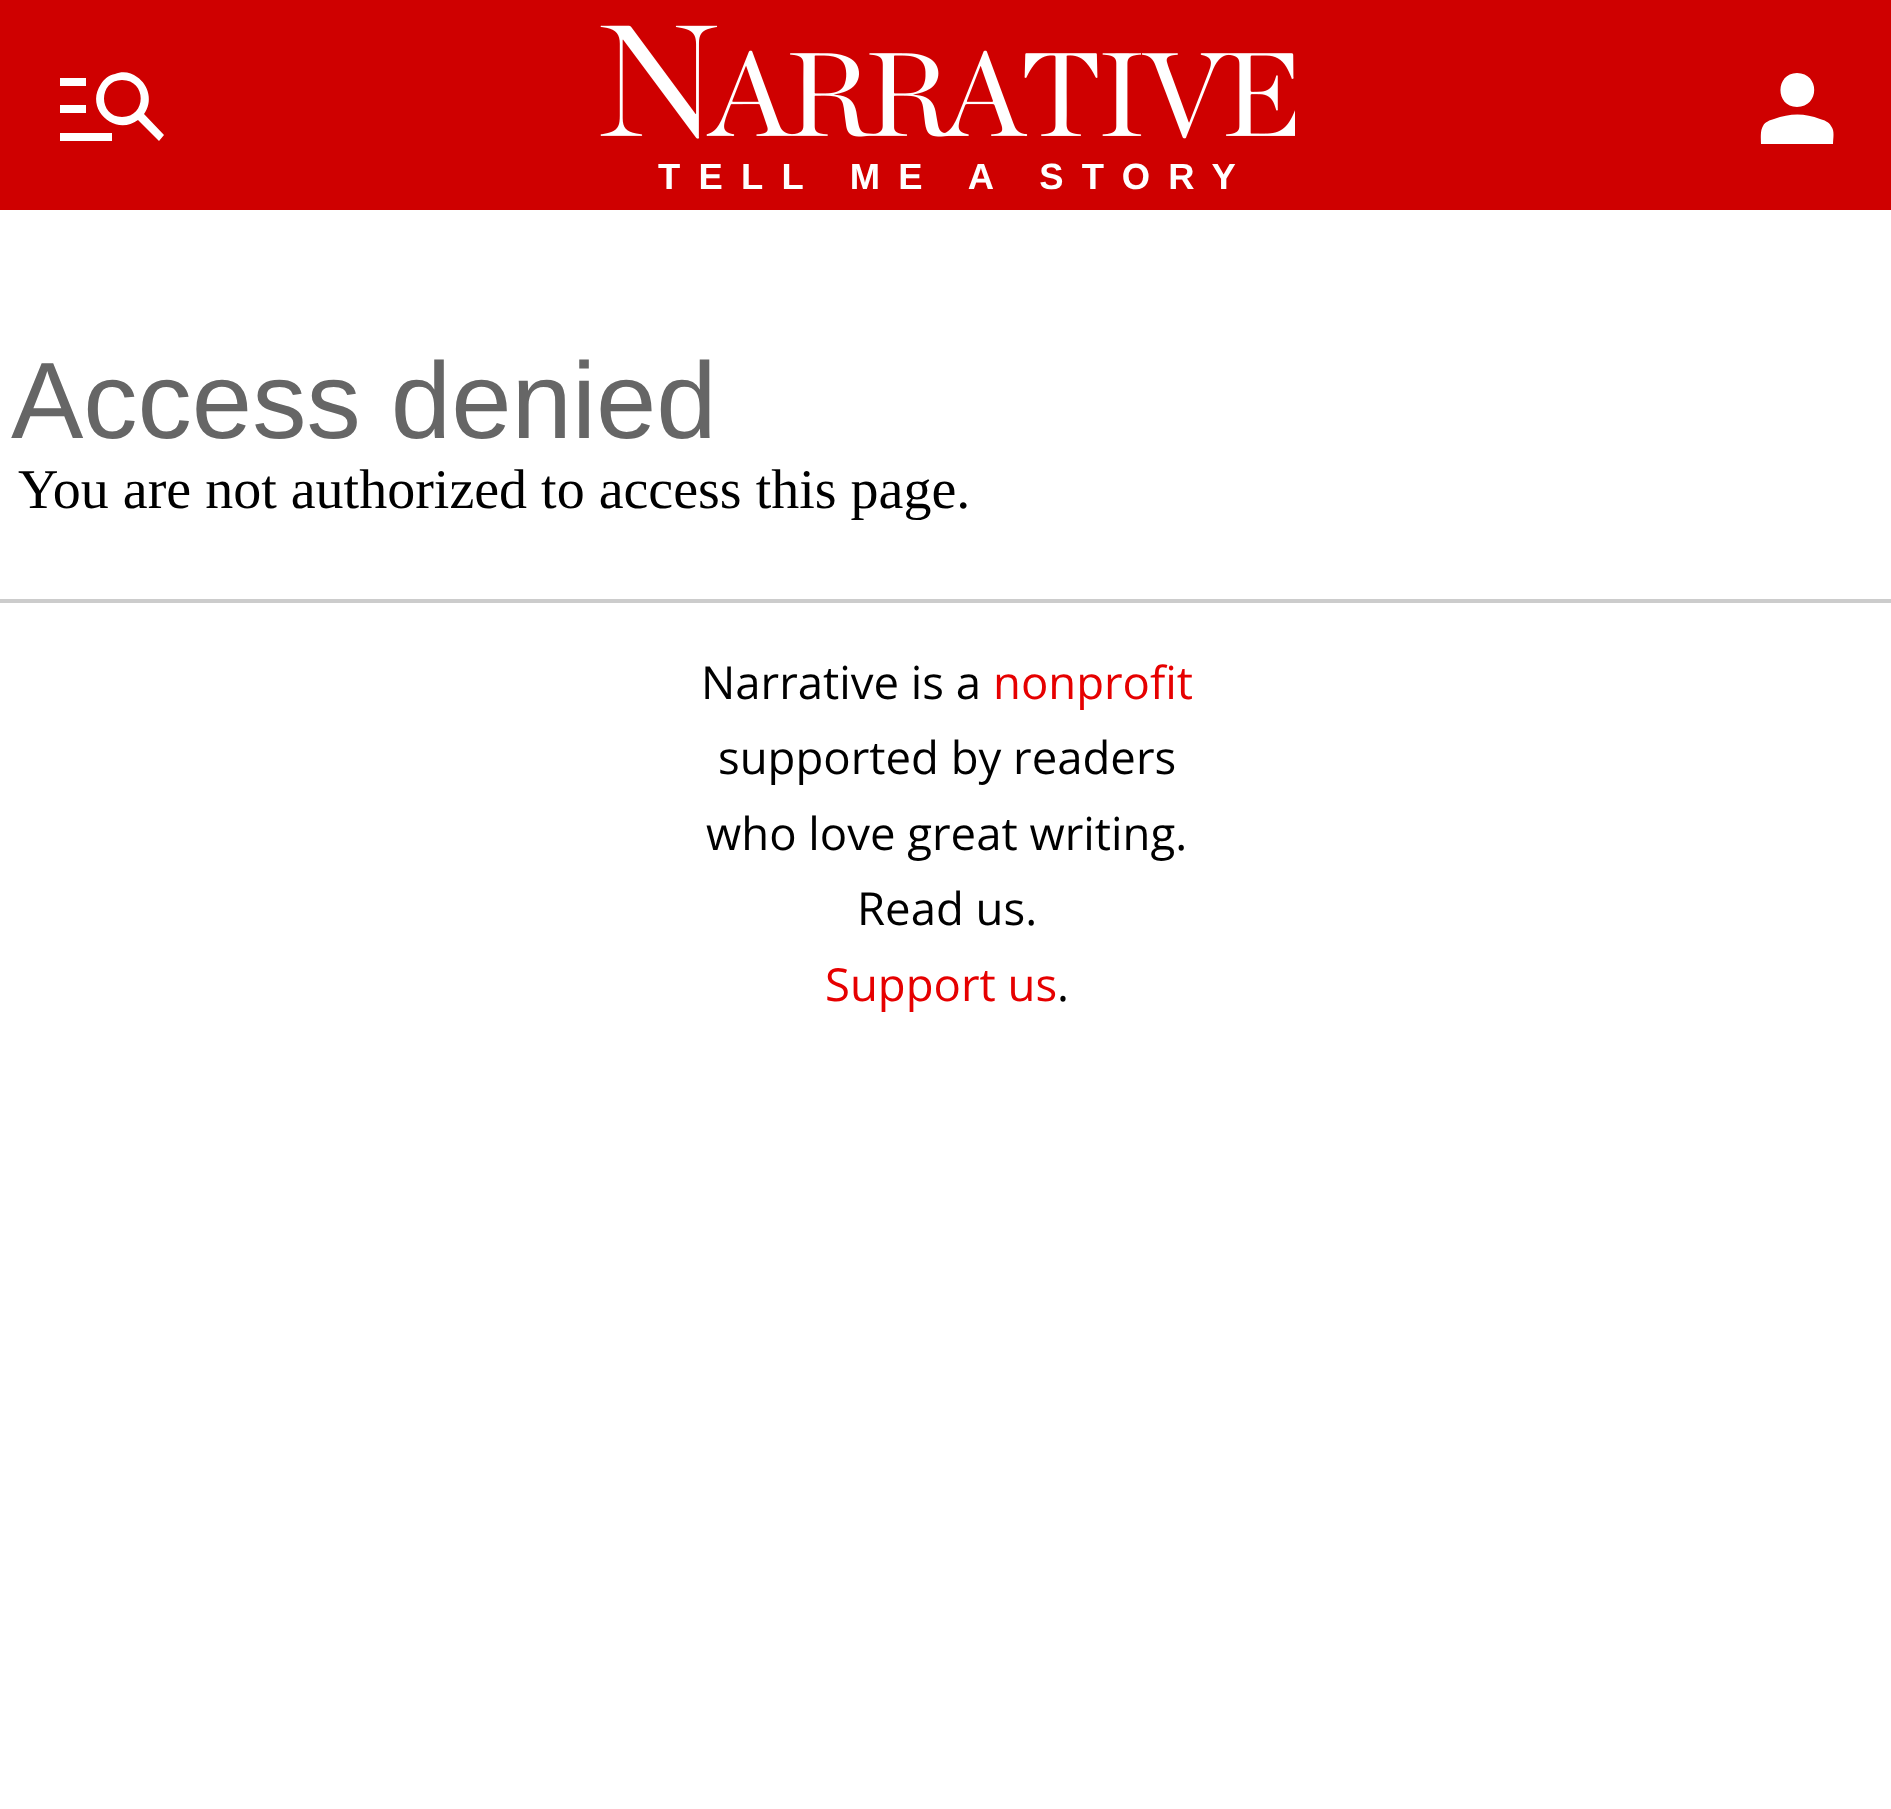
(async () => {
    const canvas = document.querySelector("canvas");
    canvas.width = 1891;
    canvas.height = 1809;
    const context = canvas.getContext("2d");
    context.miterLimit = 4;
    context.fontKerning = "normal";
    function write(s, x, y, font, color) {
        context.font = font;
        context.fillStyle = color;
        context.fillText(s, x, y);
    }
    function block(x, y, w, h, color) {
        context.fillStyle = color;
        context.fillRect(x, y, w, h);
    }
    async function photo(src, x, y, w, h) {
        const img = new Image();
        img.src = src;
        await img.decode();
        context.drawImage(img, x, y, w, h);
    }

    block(0, 0, 1891, 1809, "rgb(255, 255, 255)");
    block(0, 0, 1891, 210, "rgb(207, 0, 0)");
    context.fillStyle = "rgb(255, 255, 255)";
    context.beginPath();
    context.moveTo(60, 141);
    context.lineTo(60, 133);
    context.lineTo(112, 133);
    context.lineTo(112, 141);
    context.closePath();
    context.moveTo(60, 113);
    context.lineTo(60, 105);
    context.lineTo(86, 105);
    context.lineTo(86, 113);
    context.closePath();
    context.moveTo(60, 86);
    context.lineTo(60, 78);
    context.lineTo(86, 78);
    context.lineTo(86, 86);
    context.closePath();
    context.moveTo(159, 141);
    context.lineTo(138, 120);
    context.bezierCurveTo(115, 137, 84, 109, 101, 84);
    context.bezierCurveTo(104, 79, 109, 75, 115, 74);
    context.bezierCurveTo(122, 71, 131, 72, 137, 77);
    context.bezierCurveTo(149, 85, 153, 102, 144, 114);
    context.lineTo(164, 135);
    context.closePath();
    context.moveTo(122, 117);
    context.bezierCurveTo(147, 117, 147, 80, 122, 80);
    context.bezierCurveTo(98, 80, 98, 117, 122, 117);
    context.closePath();
    context.fill();
    context.beginPath();
    context.moveTo(1797, 107);
    context.bezierCurveTo(1775, 107, 1775, 73, 1797, 73);
    context.bezierCurveTo(1820, 73, 1820, 107, 1797, 107);
    context.closePath();
    context.moveTo(1761, 144);
    context.bezierCurveTo(1761, 138, 1760, 131, 1763, 126);
    context.bezierCurveTo(1765, 122, 1770, 120, 1774, 119);
    context.bezierCurveTo(1790, 113, 1805, 113, 1820, 119);
    context.bezierCurveTo(1824, 120, 1829, 122, 1831, 126);
    context.bezierCurveTo(1835, 131, 1833, 138, 1833, 144);
    context.closePath();
    context.fill();
    await photo("media/1.png", 600, 25, 695, 114);
    context.letterSpacing = "18.25px";
    write("TELL ME A STORY", 658, 189, "bold 36.4px Liberation Sans", "rgb(255, 255, 255)");
    context.letterSpacing = "0px";
    write("Access denied", 11, 438, "108.5px Liberation Sans", "rgb(102, 102, 102)");
    write("You are not authorized to access this page.", 18, 508, "56px Liberation Serif", "rgb(0, 0, 0)");
    block(0, 599, 1891, 4, "rgb(204, 204, 204)");
    write("Narrative is a", 701, 699, "45.5px Open Sans", "rgb(0, 0, 0)");
    write("nonprofit", 993, 699, "45.5px Open Sans", "rgb(230, 0, 0)");
    write("supported by readers", 718, 774, "45.5px Open Sans", "rgb(0, 0, 0)");
    write("who love great writing.", 706, 850, "45.5px Open Sans", "rgb(0, 0, 0)");
    write("Read us.", 857, 925, "45.5px Open Sans", "rgb(0, 0, 0)");
    write("Support us", 825, 1001, "45.5px Open Sans", "rgb(230, 0, 0)");
    write(".", 1057, 1001, "45.5px Open Sans", "rgb(0, 0, 0)");
})();
